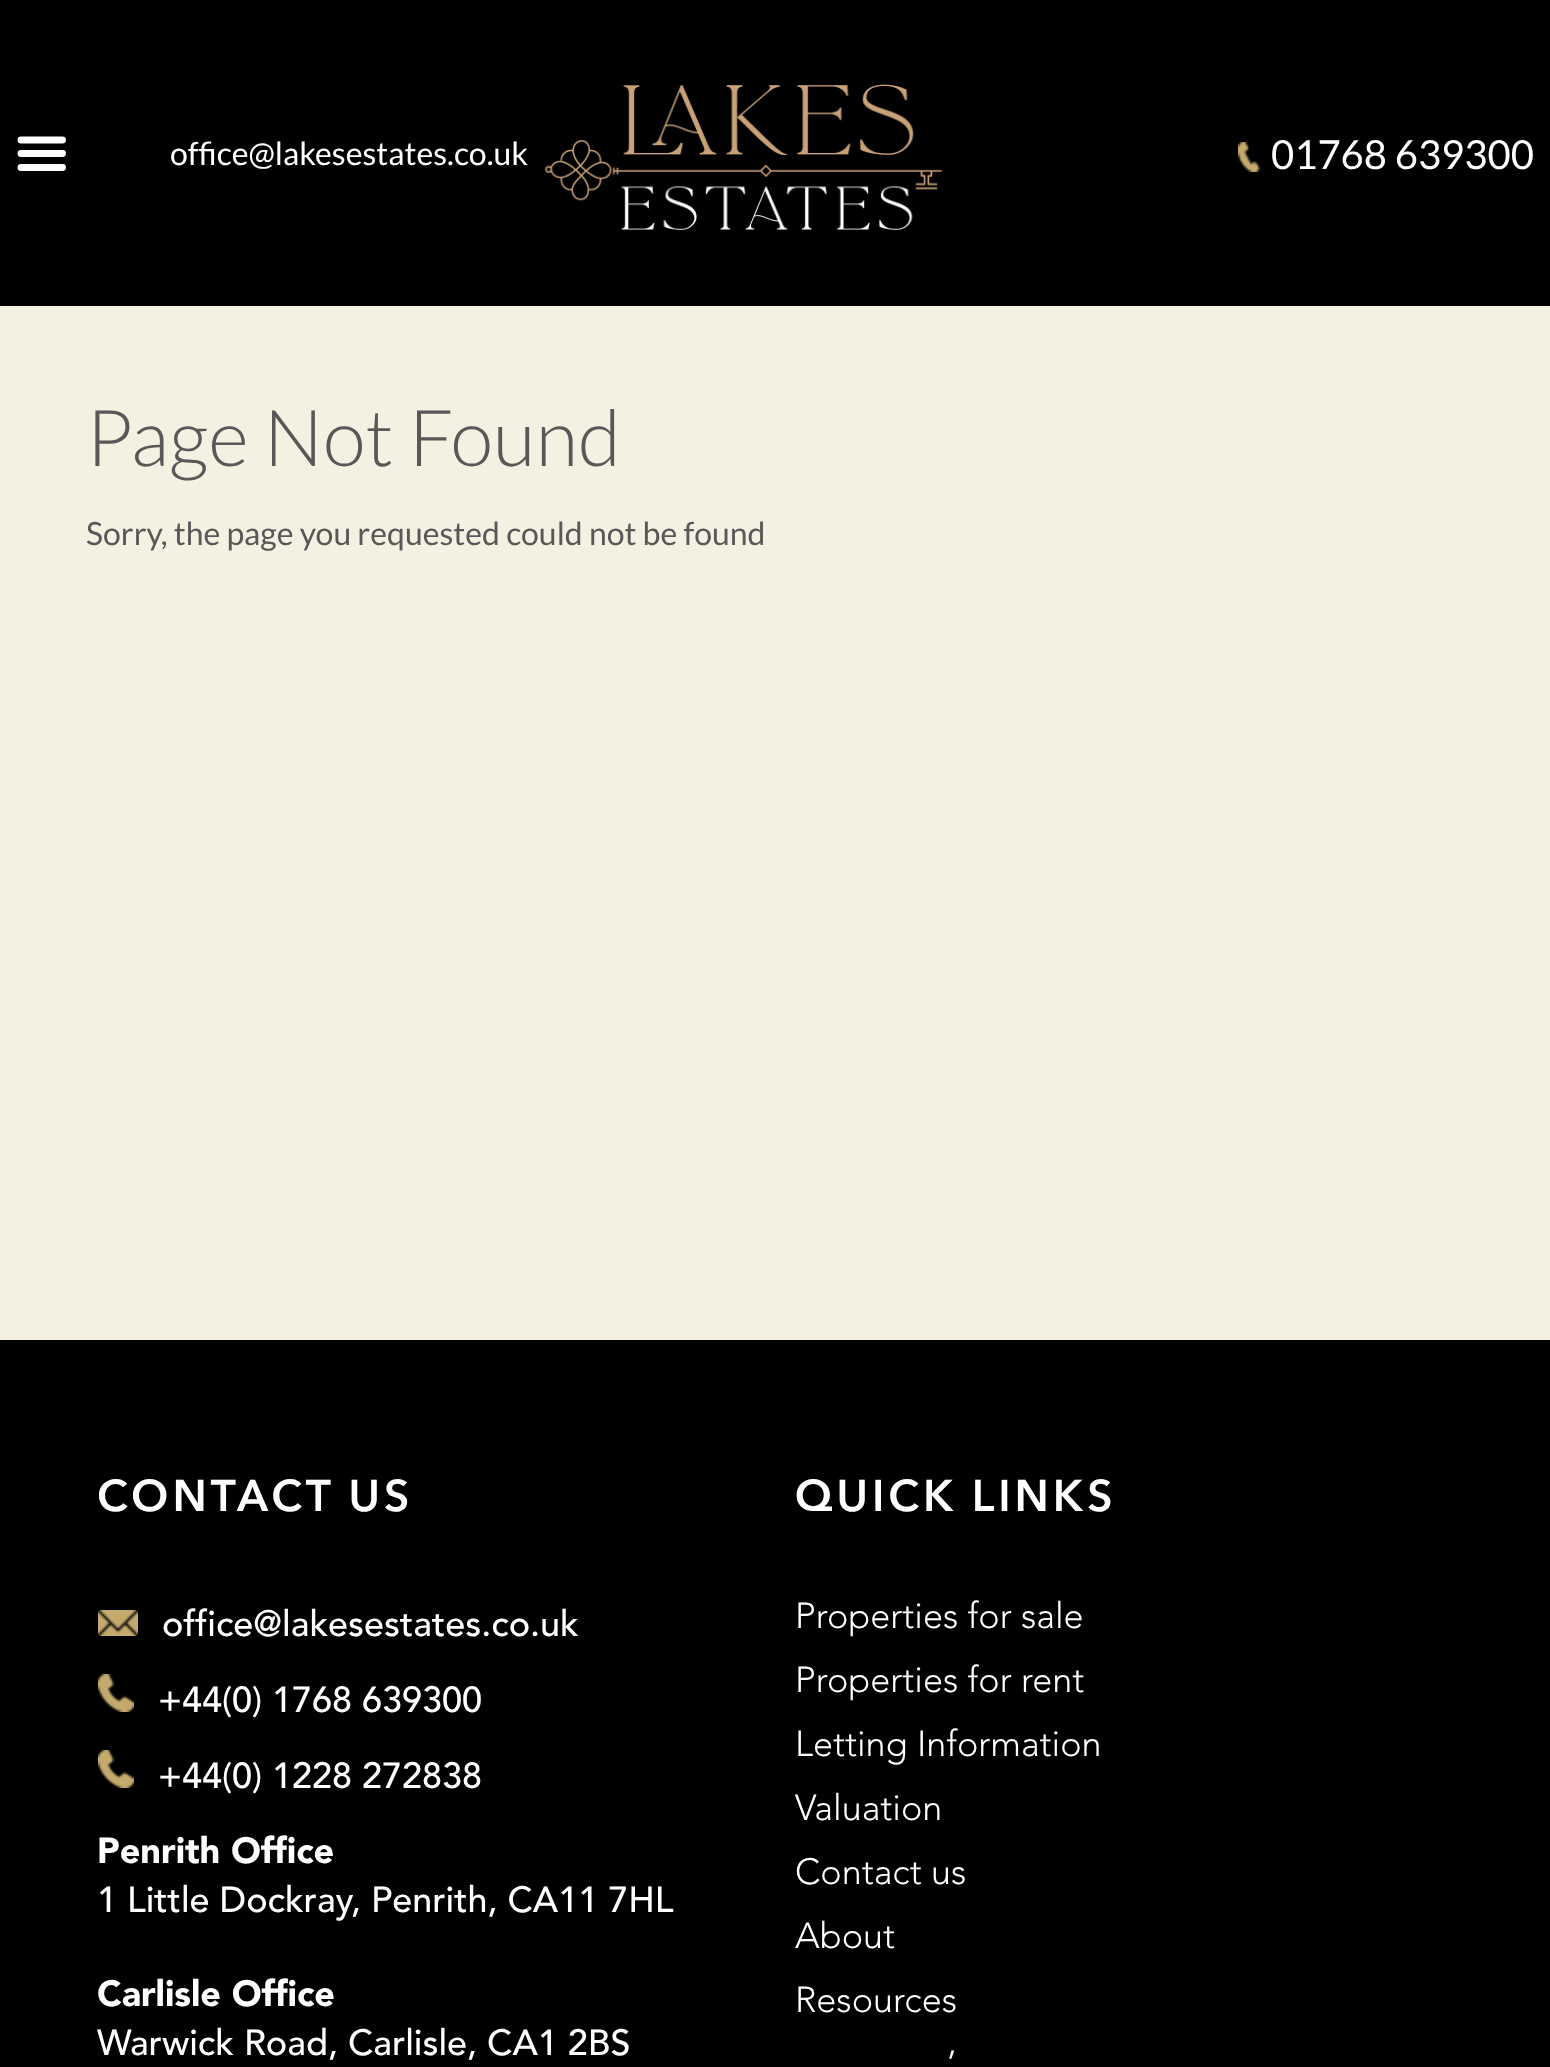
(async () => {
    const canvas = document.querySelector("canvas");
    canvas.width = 1550;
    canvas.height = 2067;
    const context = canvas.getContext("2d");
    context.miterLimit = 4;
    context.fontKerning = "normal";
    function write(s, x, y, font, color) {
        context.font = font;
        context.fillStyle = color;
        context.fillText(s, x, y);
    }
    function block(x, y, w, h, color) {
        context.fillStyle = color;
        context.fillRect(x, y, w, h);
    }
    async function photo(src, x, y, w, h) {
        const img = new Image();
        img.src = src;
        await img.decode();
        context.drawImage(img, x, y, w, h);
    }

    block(0, 0, 1550, 2067, "rgb(244, 240, 226)");
    block(0, 0, 1550, 306, "rgb(0, 0, 0)");
    context.beginPath();
    context.moveTo(21, 140);
    context.lineTo(62.5, 140);
    context.moveTo(21, 153.5);
    context.lineTo(62.5, 153.5);
    context.moveTo(21, 167.5);
    context.lineTo(62.5, 167.5);
    context.strokeStyle = "rgb(255, 255, 255)";
    context.lineWidth = 6.9;
    context.lineCap = "round";
    context.stroke();
    write("office@lakesestates.co.uk", 170, 165, "32px Lato", "rgb(255, 255, 255)");
    await photo("media/1.png", 544, 84, 398, 146);
    await photo("media/2.png", 1238, 142, 23, 30);
    write("01768 639300", 1271, 169, "40px Lato", "rgb(255, 255, 255)");
    write("Page Not Found", 86, 466, "300 78.5px Lato", "rgb(88, 88, 88)");
    write("Sorry, the page you requested could not be found", 86, 545, "32px Lato", "rgb(88, 88, 88)");
    block(0, 1340, 1550, 727, "rgb(0, 0, 0)");
    context.letterSpacing = "4px";
    write("CONTACT US", 97, 1511, "600 44px Avenir Next", "rgb(255, 255, 255)");
    await photo("media/3.png", 98, 1610, 40, 26);
    context.letterSpacing = "0px";
    write("office@lakesestates.co.uk", 162, 1636, "500 36px Avenir", "rgb(255, 255, 255)");
    await photo("media/4.png", 98, 1674, 36, 38);
    write("+44(0) 1768 639300", 158, 1712, "500 36px Avenir", "rgb(255, 255, 255)");
    await photo("media/4.png", 98, 1750, 36, 38);
    write("+44(0) 1228 272838", 158, 1788, "500 36px Avenir", "rgb(255, 255, 255)");
    write("Penrith Office", 97, 1863, "900 36px Avenir", "rgb(255, 255, 255)");
    write("1 Little Dockray, Penrith, CA11 7HL", 97, 1912, "500 36px Avenir", "rgb(255, 255, 255)");
    write("Carlisle Office", 97, 2006, "900 36px Avenir", "rgb(255, 255, 255)");
    write("Warwick Road, Carlisle, CA1 2BS", 97, 2055, "500 36px Avenir", "rgb(255, 255, 255)");
    context.letterSpacing = "4px";
    write("QUICK LINKS", 795, 1511, "600 44px Avenir Next", "rgb(255, 255, 255)");
    context.letterSpacing = "0px";
    write("Properties for sale", 795, 1628, "300 36px Avenir", "rgb(255, 255, 255)");
    write("Properties for rent", 795, 1692, "300 36px Avenir", "rgb(255, 255, 255)");
    write("Letting Information", 795, 1756, "300 36px Avenir", "rgb(255, 255, 255)");
    write("Valuation", 795, 1820, "300 36px Avenir", "rgb(255, 255, 255)");
    write("Contact us", 795, 1884, "300 36px Avenir", "rgb(255, 255, 255)");
    write("About", 795, 1948, "300 36px Avenir", "rgb(255, 255, 255)");
    write("Resources", 795, 2012, "300 36px Avenir", "rgb(255, 255, 255)");
    write("’", 947, 2076, "300 36px Avenir", "rgb(255, 255, 255)");
})();
